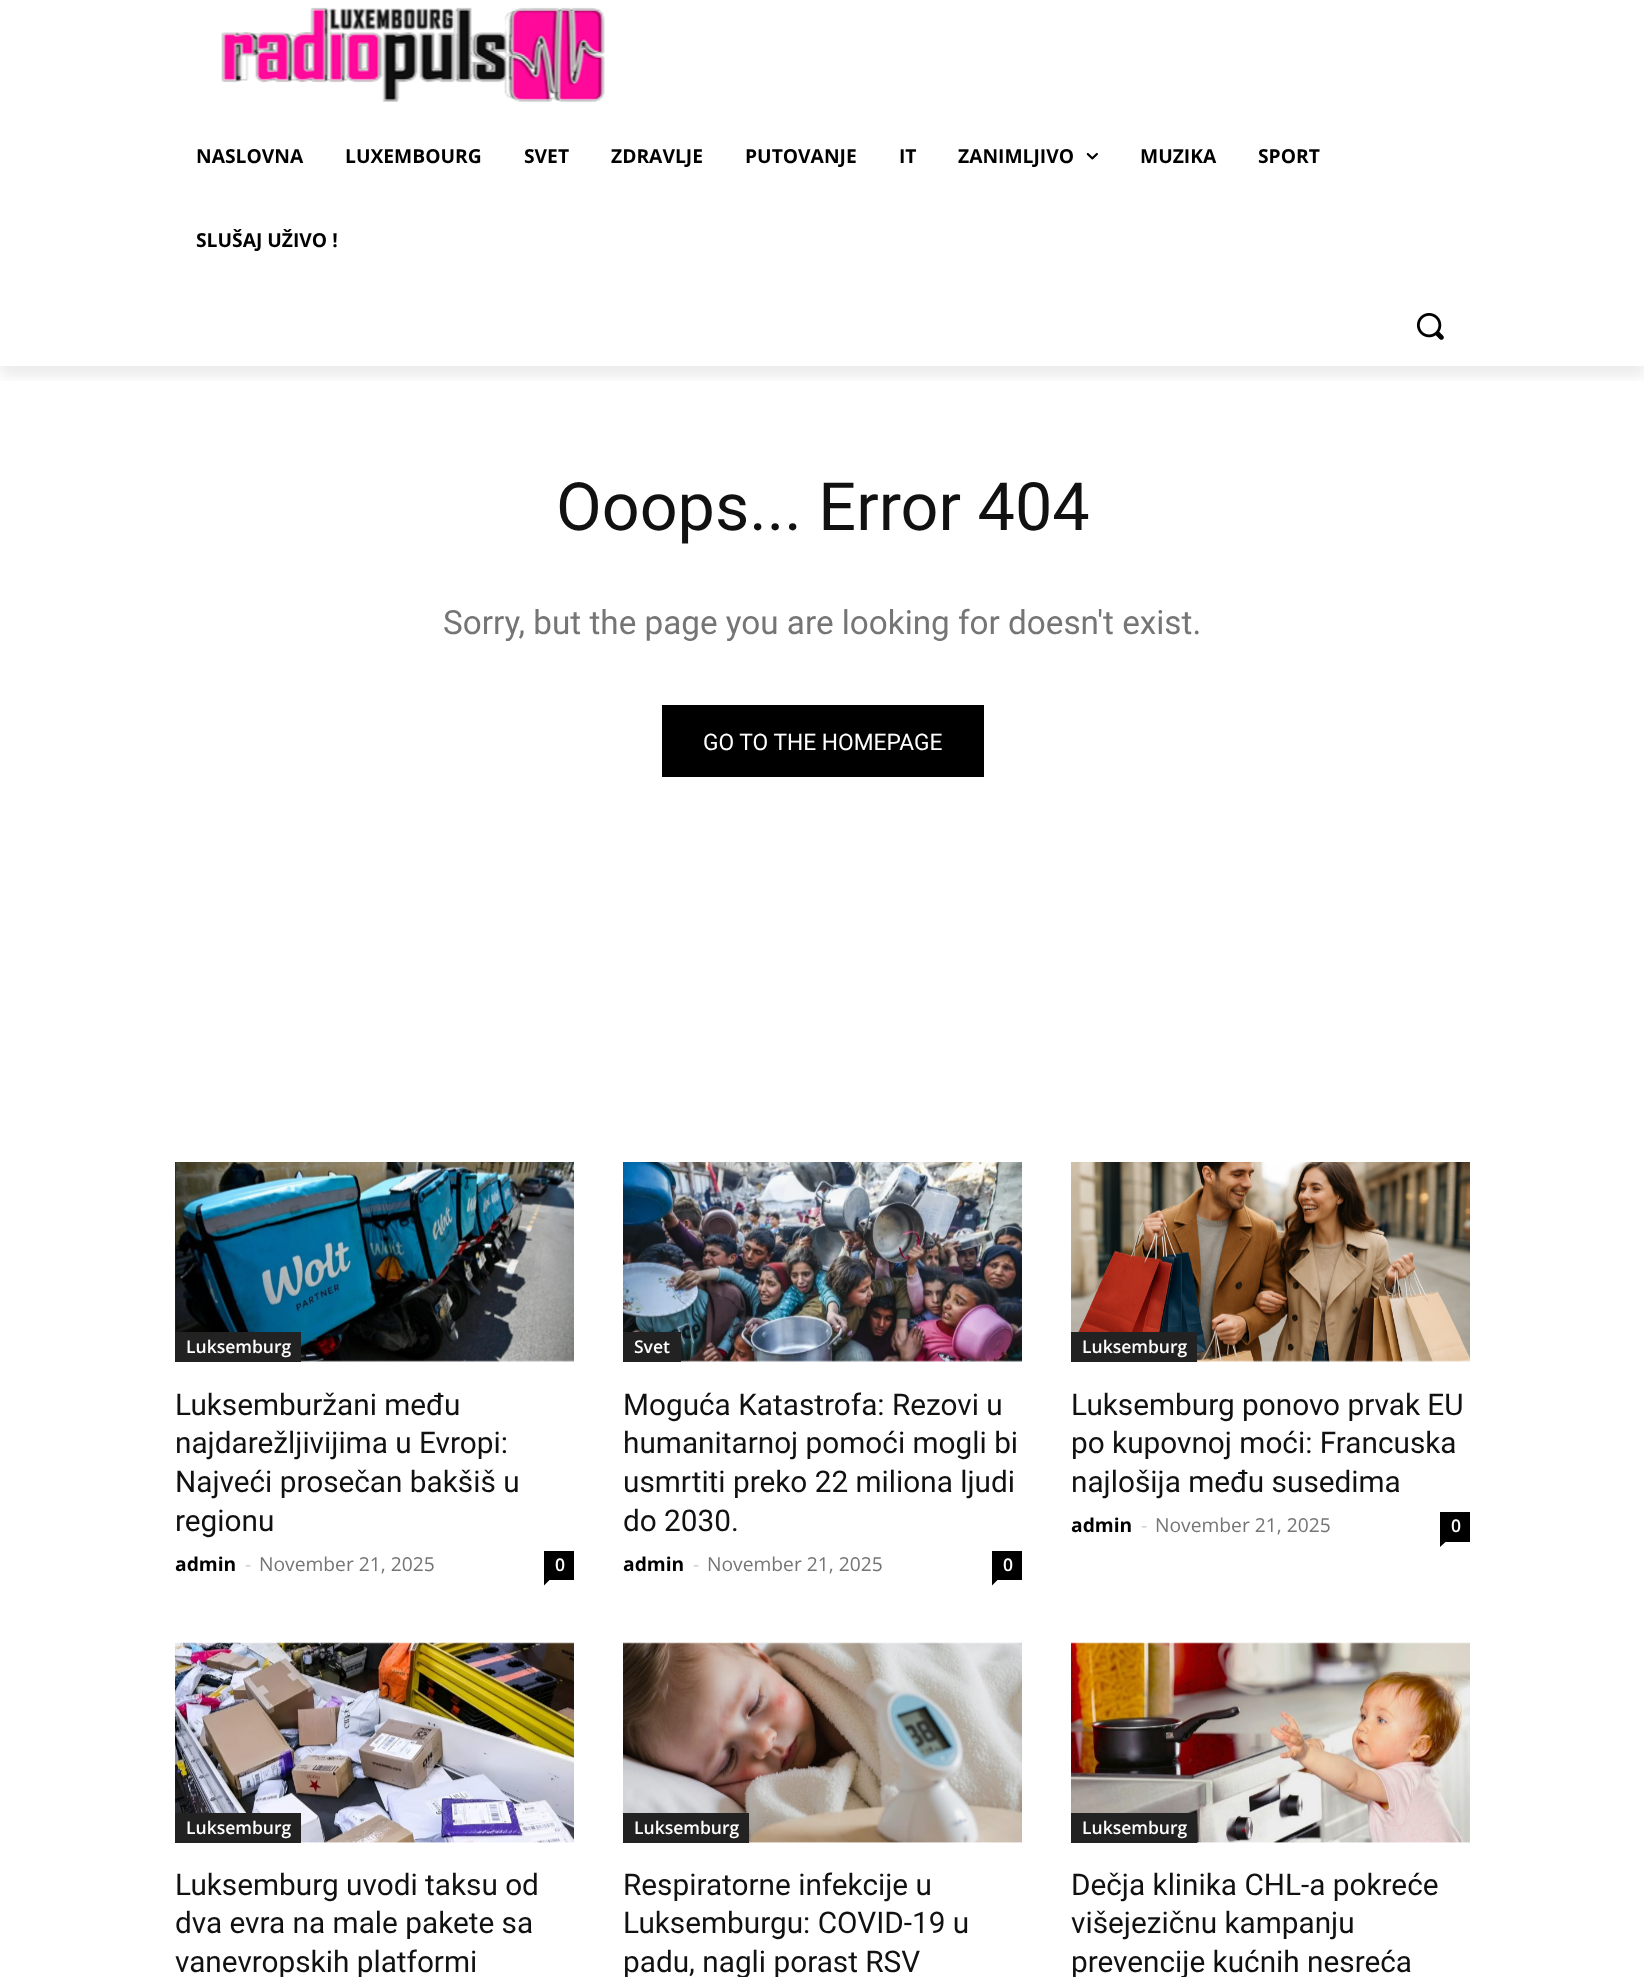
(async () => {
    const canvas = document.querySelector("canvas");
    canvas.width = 1644;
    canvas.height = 1977;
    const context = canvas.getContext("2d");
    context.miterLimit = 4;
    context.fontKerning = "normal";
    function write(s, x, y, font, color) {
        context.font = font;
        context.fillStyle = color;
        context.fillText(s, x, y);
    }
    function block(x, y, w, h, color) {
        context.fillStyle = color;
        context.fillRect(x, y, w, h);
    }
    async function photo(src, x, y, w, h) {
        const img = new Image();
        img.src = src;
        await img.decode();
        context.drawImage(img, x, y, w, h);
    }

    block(0, 0, 1644, 1977, "rgb(255, 255, 255)");
    await photo("media/1.png", 221, 7, 384, 95);
    context.save();
    context.beginPath();
    context.rect(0, 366, 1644, 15);
    context.clip();
    context.fillStyle = "rgba(0, 0, 0, 0.08)";
    context.filter = "blur(7px)";
    context.beginPath();
    context.rect(0, -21, 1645, 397);
    context.fill();
    context.filter = "none";
    context.restore();
    write("NASLOVNA", 196, 163, "bold 19.25px Open Sans", "rgb(0, 0, 0)");
    write("LUXEMBOURG", 345, 163, "bold 19.25px Open Sans", "rgb(0, 0, 0)");
    write("SVET", 524, 163, "bold 19.25px Open Sans", "rgb(0, 0, 0)");
    write("ZDRAVLJE", 611, 163, "bold 19.25px Open Sans", "rgb(0, 0, 0)");
    write("PUTOVANJE", 745, 163, "bold 19.25px Open Sans", "rgb(0, 0, 0)");
    write("IT", 899, 163, "bold 19.25px Open Sans", "rgb(0, 0, 0)");
    write("ZANIMLJIVO", 958, 163, "bold 19.25px Open Sans", "rgb(0, 0, 0)");
    await photo("media/2.png", 1086, 152, 12, 8);
    write("MUZIKA", 1140, 163, "bold 19.25px Open Sans", "rgb(0, 0, 0)");
    write("SPORT", 1258, 163, "bold 19.25px Open Sans", "rgb(0, 0, 0)");
    write("SLUŠAJ UŽIVO !", 196, 247, "bold 19.25px Open Sans", "rgb(0, 0, 0)");
    await photo("media/3.png", 1416, 313, 28, 27);
    write("Ooops... Error 404", 556, 530, "66.5px Roboto", "rgb(17, 17, 17)");
    write("Sorry, but the page you are looking for doesn't exist.", 443, 634, "33.25px Roboto", "rgb(117, 117, 117)");
    block(662, 705, 322, 72, "rgb(0, 0, 0)");
    write("GO TO THE HOMEPAGE", 703, 750, "22.75px Roboto", "rgb(255, 255, 255)");
    await photo("media/4.png", 175, 1162, 399, 200);
    block(175, 1332, 126, 30, "rgb(34, 34, 34)");
    write("Luksemburg", 186, 1353, "600 17.5px Open Sans", "rgb(255, 255, 255)");
    write("Luksemburžani među", 175, 1415, "29.75px Roboto", "rgb(17, 17, 17)");
    write("najdarežljivijima u Evropi:", 175, 1453, "29.75px Roboto", "rgb(17, 17, 17)");
    write("Najveći prosečan bakšiš u", 175, 1492, "29.75px Roboto", "rgb(17, 17, 17)");
    write("regionu", 175, 1531, "29.75px Roboto", "rgb(17, 17, 17)");
    write("admin", 175, 1571, "bold 19.25px Open Sans", "rgb(0, 0, 0)");
    write("-", 245, 1571, "19.25px Open Sans", "rgb(204, 204, 204)");
    write("November 21, 2025", 259, 1571, "19.25px Open Sans", "rgb(117, 117, 117)");
    block(544, 1551, 30, 29, "rgb(0, 0, 0)");
    write("0", 555, 1571, "600 17.5px Open Sans", "rgb(255, 255, 255)");
    context.fillStyle = "rgb(0, 0, 0)";
    context.beginPath();
    context.moveTo(544, 1580);
    context.lineTo(549.5, 1580);
    context.lineTo(544, 1585.5);
    context.closePath();
    context.fill();
    await photo("media/5.png", 623, 1162, 399, 200);
    block(623, 1332, 58, 30, "rgb(34, 34, 34)");
    write("Svet", 634, 1353, "600 17.5px Open Sans", "rgb(255, 255, 255)");
    write("Moguća Katastrofa: Rezovi u", 623, 1415, "29.75px Roboto", "rgb(17, 17, 17)");
    write("humanitarnoj pomoći mogli bi", 623, 1453, "29.75px Roboto", "rgb(17, 17, 17)");
    write("usmrtiti preko 22 miliona ljudi", 623, 1492, "29.75px Roboto", "rgb(17, 17, 17)");
    write("do 2030.", 623, 1531, "29.75px Roboto", "rgb(17, 17, 17)");
    write("admin", 623, 1571, "bold 19.25px Open Sans", "rgb(0, 0, 0)");
    write("-", 693, 1571, "19.25px Open Sans", "rgb(204, 204, 204)");
    write("November 21, 2025", 707, 1571, "19.25px Open Sans", "rgb(117, 117, 117)");
    block(992, 1551, 30, 29, "rgb(0, 0, 0)");
    write("0", 1003, 1571, "600 17.5px Open Sans", "rgb(255, 255, 255)");
    context.fillStyle = "rgb(0, 0, 0)";
    context.beginPath();
    context.moveTo(992, 1580);
    context.lineTo(997.5, 1580);
    context.lineTo(992, 1585.5);
    context.closePath();
    context.fill();
    await photo("media/6.png", 1071, 1162, 399, 200);
    block(1071, 1332, 126, 30, "rgb(34, 34, 34)");
    write("Luksemburg", 1082, 1353, "600 17.5px Open Sans", "rgb(255, 255, 255)");
    write("Luksemburg ponovo prvak EU", 1071, 1415, "29.75px Roboto", "rgb(17, 17, 17)");
    write("po kupovnoj moći: Francuska", 1071, 1453, "29.75px Roboto", "rgb(17, 17, 17)");
    write("najlošija među susedima", 1071, 1492, "29.75px Roboto", "rgb(17, 17, 17)");
    write("admin", 1071, 1532, "bold 19.25px Open Sans", "rgb(0, 0, 0)");
    write("-", 1141, 1532, "19.25px Open Sans", "rgb(204, 204, 204)");
    write("November 21, 2025", 1155, 1532, "19.25px Open Sans", "rgb(117, 117, 117)");
    block(1440, 1512, 30, 30, "rgb(0, 0, 0)");
    write("0", 1451, 1532, "600 17.5px Open Sans", "rgb(255, 255, 255)");
    context.fillStyle = "rgb(0, 0, 0)";
    context.beginPath();
    context.moveTo(1440, 1542);
    context.lineTo(1445.5, 1542);
    context.lineTo(1440, 1547);
    context.closePath();
    context.fill();
    await photo("media/7.png", 175, 1642, 399, 201);
    block(175, 1813, 126, 30, "rgb(34, 34, 34)");
    write("Luksemburg", 186, 1834, "600 17.5px Open Sans", "rgb(255, 255, 255)");
    write("Luksemburg uvodi taksu od", 175, 1895, "29.75px Roboto", "rgb(17, 17, 17)");
    write("dva evra na male pakete sa", 175, 1933, "29.75px Roboto", "rgb(17, 17, 17)");
    write("vanevropskih platformi", 175, 1972, "29.75px Roboto", "rgb(17, 17, 17)");
    await photo("media/8.png", 623, 1642, 399, 201);
    block(623, 1813, 126, 30, "rgb(34, 34, 34)");
    write("Luksemburg", 634, 1834, "600 17.5px Open Sans", "rgb(255, 255, 255)");
    write("Respiratorne infekcije u", 623, 1895, "29.75px Roboto", "rgb(17, 17, 17)");
    write("Luksemburgu: COVID-19 u", 623, 1933, "29.75px Roboto", "rgb(17, 17, 17)");
    write("padu, nagli porast RSV", 623, 1972, "29.75px Roboto", "rgb(17, 17, 17)");
    await photo("media/9.png", 1071, 1642, 399, 201);
    block(1071, 1813, 126, 30, "rgb(34, 34, 34)");
    write("Luksemburg", 1082, 1834, "600 17.5px Open Sans", "rgb(255, 255, 255)");
    write("Dečja klinika CHL-a pokreće", 1071, 1895, "29.75px Roboto", "rgb(17, 17, 17)");
    write("višejezičnu kampanju", 1071, 1933, "29.75px Roboto", "rgb(17, 17, 17)");
    write("prevencije kućnih nesreća", 1071, 1972, "29.75px Roboto", "rgb(17, 17, 17)");
})();
